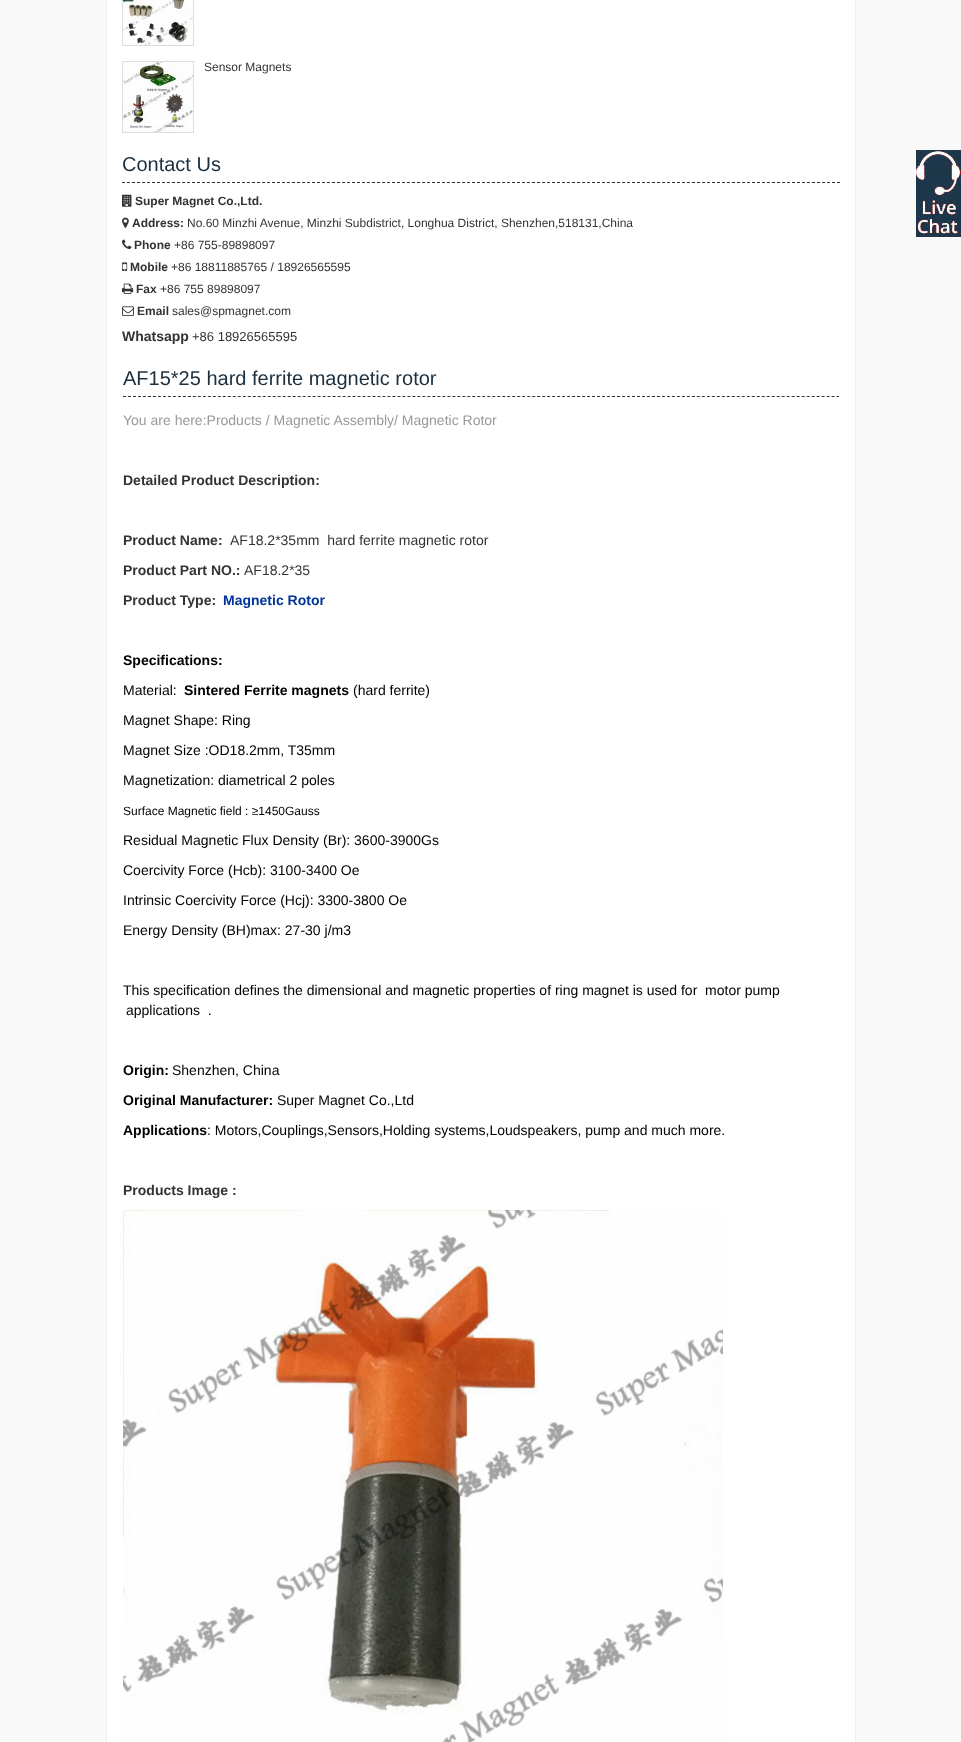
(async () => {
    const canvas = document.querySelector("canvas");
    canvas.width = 961;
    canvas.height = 1742;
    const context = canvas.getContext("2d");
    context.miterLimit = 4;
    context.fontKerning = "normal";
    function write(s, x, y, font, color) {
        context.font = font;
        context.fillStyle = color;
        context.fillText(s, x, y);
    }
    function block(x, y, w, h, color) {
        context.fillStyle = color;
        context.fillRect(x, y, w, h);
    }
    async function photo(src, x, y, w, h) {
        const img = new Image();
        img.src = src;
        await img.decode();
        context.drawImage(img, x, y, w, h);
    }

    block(0, 0, 961, 1742, "rgb(249, 249, 249)");
    block(107, 0, 748, 1742, "rgb(255, 255, 255)");
    block(855, 0, 1, 1742, "rgb(238, 238, 238)");
    block(106, 0, 1, 1742, "rgb(238, 238, 238)");
    context.strokeStyle = "rgb(221, 221, 221)";
    context.strokeRect(122.5, -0.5, 71, 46);
    await photo("media/1.png", 123, 0, 70, 45);
    context.strokeRect(122.5, 61.5, 71, 71);
    await photo("media/2.png", 123, 62, 70, 70);
    write("Sensor Magnets", 204, 71, "12px Liberation Sans", "rgb(51, 51, 51)");
    context.beginPath();
    context.moveTo(122, 182.5);
    context.lineTo(840, 182.5);
    context.strokeStyle = "rgb(51, 51, 51)";
    context.setLineDash([3, 2]);
    context.stroke();
    write("Contact Us", 122, 171, "20px Liberation Sans", "rgb(28, 47, 62)");
    await photo("media/3.png", 122, 194, 10, 13);
    write("Super Magnet Co.,Ltd.", 135, 205, "bold 12px Liberation Sans", "rgb(51, 51, 51)");
    await photo("media/4.png", 122, 217, 7, 11);
    write("Address:", 132, 227, "bold 12px Liberation Sans", "rgb(51, 51, 51)");
    write("No.60 Minzhi Avenue, Minzhi Subdistrict, Longhua District, Shenzhen,518131,China", 187, 227, "12px Liberation Sans", "rgb(51, 51, 51)");
    await photo("media/5.png", 122, 239, 10, 10);
    write("Phone", 134, 249, "bold 12px Liberation Sans", "rgb(51, 51, 51)");
    write("+86 755-89898097", 174, 249, "12px Liberation Sans", "rgb(51, 51, 51)");
    await photo("media/6.png", 122, 262, 6, 9);
    write("Mobile", 130, 271, "bold 12px Liberation Sans", "rgb(51, 51, 51)");
    write("+86 18811885765 / 18926565595", 171, 271, "12px Liberation Sans", "rgb(51, 51, 51)");
    await photo("media/7.png", 122, 283, 12, 11);
    write("Fax", 136, 293, "bold 12px Liberation Sans", "rgb(51, 51, 51)");
    write("+86 755 89898097", 160, 293, "12px Liberation Sans", "rgb(51, 51, 51)");
    await photo("media/8.png", 122, 306, 12, 10);
    write("Email", 137, 315, "bold 12px Liberation Sans", "rgb(51, 51, 51)");
    write("sales@spmagnet.com", 172, 315, "12px Liberation Sans", "rgb(51, 51, 51)");
    write("Whatsapp", 122, 341, "bold 14px Liberation Sans", "rgb(51, 51, 51)");
    write("+86 18926565595", 192, 341, "13px Liberation Sans", "rgb(51, 51, 51)");
    context.beginPath();
    context.moveTo(123, 396.5);
    context.lineTo(839, 396.5);
    context.setLineDash([3, 1.99]);
    context.stroke();
    write("AF15*25 hard ferrite magnetic rotor", 123, 385, "20px Liberation Sans", "rgb(28, 47, 62)");
    write("You are here:Products / Magnetic Assembly/ Magnetic Rotor", 123, 425, "14px Liberation Sans", "rgb(153, 153, 153)");
    write("Detailed Product Description:", 123, 485, "bold 14px Liberation Sans", "rgb(51, 51, 51)");
    write("Product Name:", 123, 545, "bold 14px Liberation Sans", "rgb(51, 51, 51)");
    write("AF18.2*35mm  hard ferrite magnetic rotor", 230, 545, "14px Liberation Sans", "rgb(51, 51, 51)");
    write("Product Part NO.:", 123, 575, "bold 14px Liberation Sans", "rgb(51, 51, 51)");
    write("AF18.2*35", 244, 575, "14px Liberation Sans", "rgb(51, 51, 51)");
    write("Product Type:", 123, 605, "bold 14px Liberation Sans", "rgb(51, 51, 51)");
    write("Magnetic Rotor", 223, 605, "bold 14px Liberation Sans", "rgb(0, 51, 153)");
    write("Specifications:", 123, 665, "bold 14px Liberation Sans", "rgb(0, 0, 0)");
    write("Material:", 123, 695, "14px Liberation Sans", "rgb(0, 0, 0)");
    write("Sintered Ferrite magnets", 184, 695, "bold 14px Liberation Sans", "rgb(0, 0, 0)");
    write("(hard ferrite)", 353, 695, "14px Liberation Sans", "rgb(0, 0, 0)");
    write("Magnet Shape: Ring", 123, 725, "14px Liberation Sans", "rgb(0, 0, 0)");
    write("Magnet Size :OD18.2mm, T35mm", 123, 755, "14px Liberation Sans", "rgb(0, 0, 0)");
    write("Magnetization: diametrical 2 poles", 123, 785, "14px Liberation Sans", "rgb(0, 0, 0)");
    write("Surface Magnetic field : ≥1450Gauss", 123, 815, "12px Liberation Sans", "rgb(0, 0, 0)");
    write("Residual Magnetic Flux Density (Br): 3600-3900Gs", 123, 845, "14px Liberation Sans", "rgb(0, 0, 0)");
    write("Coercivity Force (Hcb): 3100-3400 Oe", 123, 875, "14px Liberation Sans", "rgb(0, 0, 0)");
    write("Intrinsic Coercivity Force (Hcj): 3300-3800 Oe", 123, 905, "14px Liberation Sans", "rgb(0, 0, 0)");
    write("Energy Density (BH)max: 27-30 j/m3", 123, 935, "14px Liberation Sans", "rgb(0, 0, 0)");
    write("This specification defines the dimensional and magnetic properties of ring magnet is used for  motor pump", 123, 995, "14px Liberation Sans", "rgb(0, 0, 0)");
    write("applications  .", 126, 1015, "14px Liberation Sans", "rgb(0, 0, 0)");
    write("Origin:", 123, 1075, "bold 14px Liberation Sans", "rgb(0, 0, 0)");
    write("Shenzhen, China", 172, 1075, "14px Liberation Sans", "rgb(0, 0, 0)");
    write("Original Manufacturer:", 123, 1105, "bold 14px Liberation Sans", "rgb(0, 0, 0)");
    write("Super Magnet Co.,Ltd", 277, 1105, "14px Liberation Sans", "rgb(0, 0, 0)");
    write("Applications", 123, 1135, "bold 14px Liberation Sans", "rgb(0, 0, 0)");
    write(": Motors,Couplings,Sensors,Holding systems,Loudspeakers, pump and much more.", 207, 1135, "14px Liberation Sans", "rgb(0, 0, 0)");
    write("Products Image :", 123, 1195, "bold 14px Liberation Sans", "rgb(51, 51, 51)");
    await photo("media/9.png", 123, 1210, 600, 532);
    await photo("media/10.png", 916, 150, 45, 87);
})();
